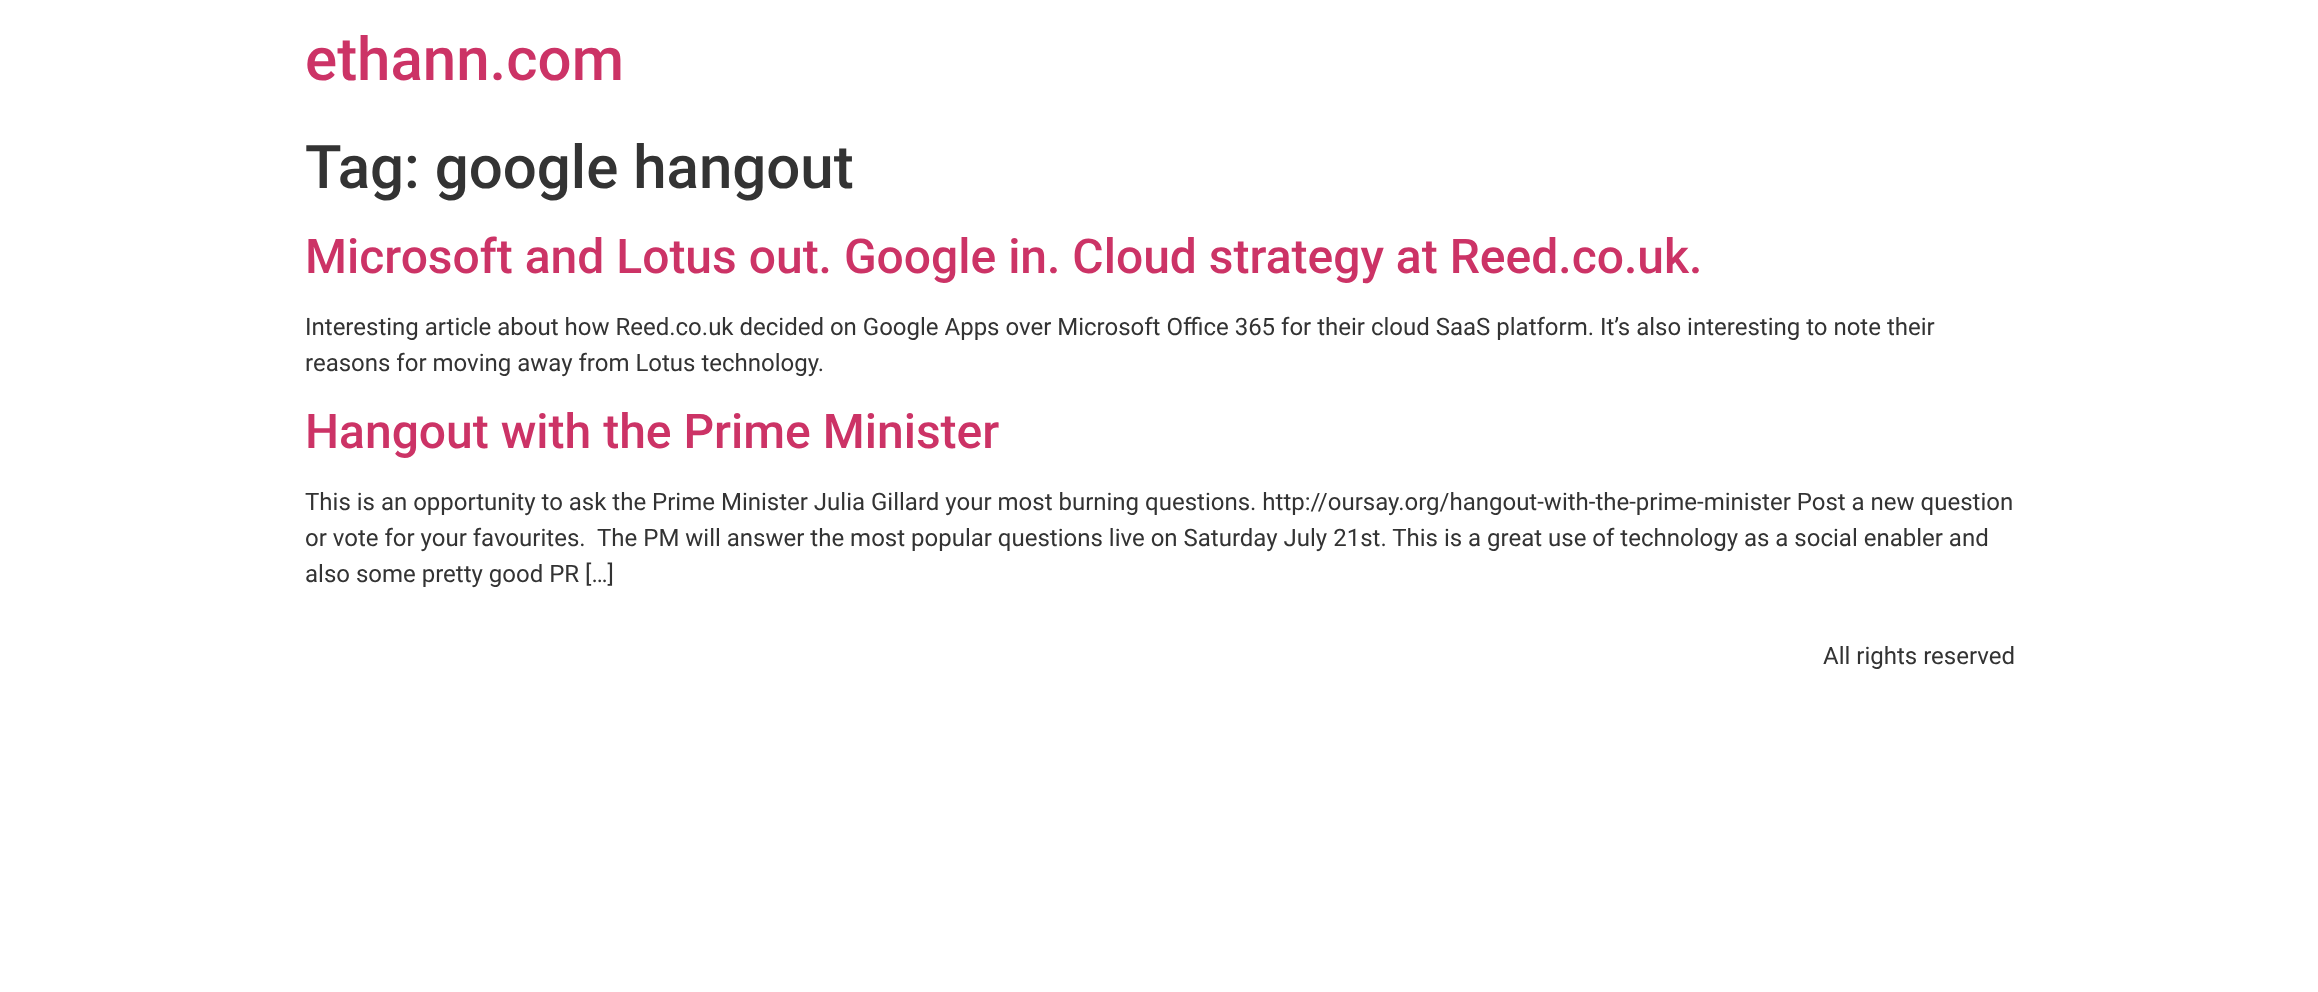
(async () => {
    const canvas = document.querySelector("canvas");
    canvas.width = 2318;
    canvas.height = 992;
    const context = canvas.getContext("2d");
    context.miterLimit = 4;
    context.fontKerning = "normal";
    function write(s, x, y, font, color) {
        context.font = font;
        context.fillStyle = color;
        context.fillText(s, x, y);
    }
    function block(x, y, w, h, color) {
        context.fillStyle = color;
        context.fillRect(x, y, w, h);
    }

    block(0, 0, 2318, 992, "rgb(255, 255, 255)");
    write("ethann.com", 305, 80, "500 60px Roboto", "rgb(204, 51, 102)");
    write("Tag: google hangout", 305, 188, "500 60px Roboto", "rgb(51, 51, 51)");
    write("Microsoft and Lotus out. Google in. Cloud strategy at Reed.co.uk.", 305, 273, "500 48px Roboto", "rgb(204, 51, 102)");
    write("Interesting article about how Reed.co.uk decided on Google Apps over Microsoft Office 365 for their cloud SaaS platform. It’s also interesting to note their", 305, 335, "24px Roboto", "rgb(51, 51, 51)");
    write("reasons for moving away from Lotus technology.", 305, 371, "24px Roboto", "rgb(51, 51, 51)");
    write("Hangout with the Prime Minister", 305, 448, "500 48px Roboto", "rgb(204, 51, 102)");
    write("This is an opportunity to ask the Prime Minister Julia Gillard your most burning questions. http://oursay.org/hangout-with-the-prime-minister Post a new question", 305, 510, "24px Roboto", "rgb(51, 51, 51)");
    write("or vote for your favourites.  The PM will answer the most popular questions live on Saturday July 21st. This is a great use of technology as a social enabler and", 305, 546, "24px Roboto", "rgb(51, 51, 51)");
    write("also some pretty good PR […]", 305, 582, "24px Roboto", "rgb(51, 51, 51)");
    write("All rights reserved", 1823, 664, "24px Roboto", "rgb(51, 51, 51)");
})();
